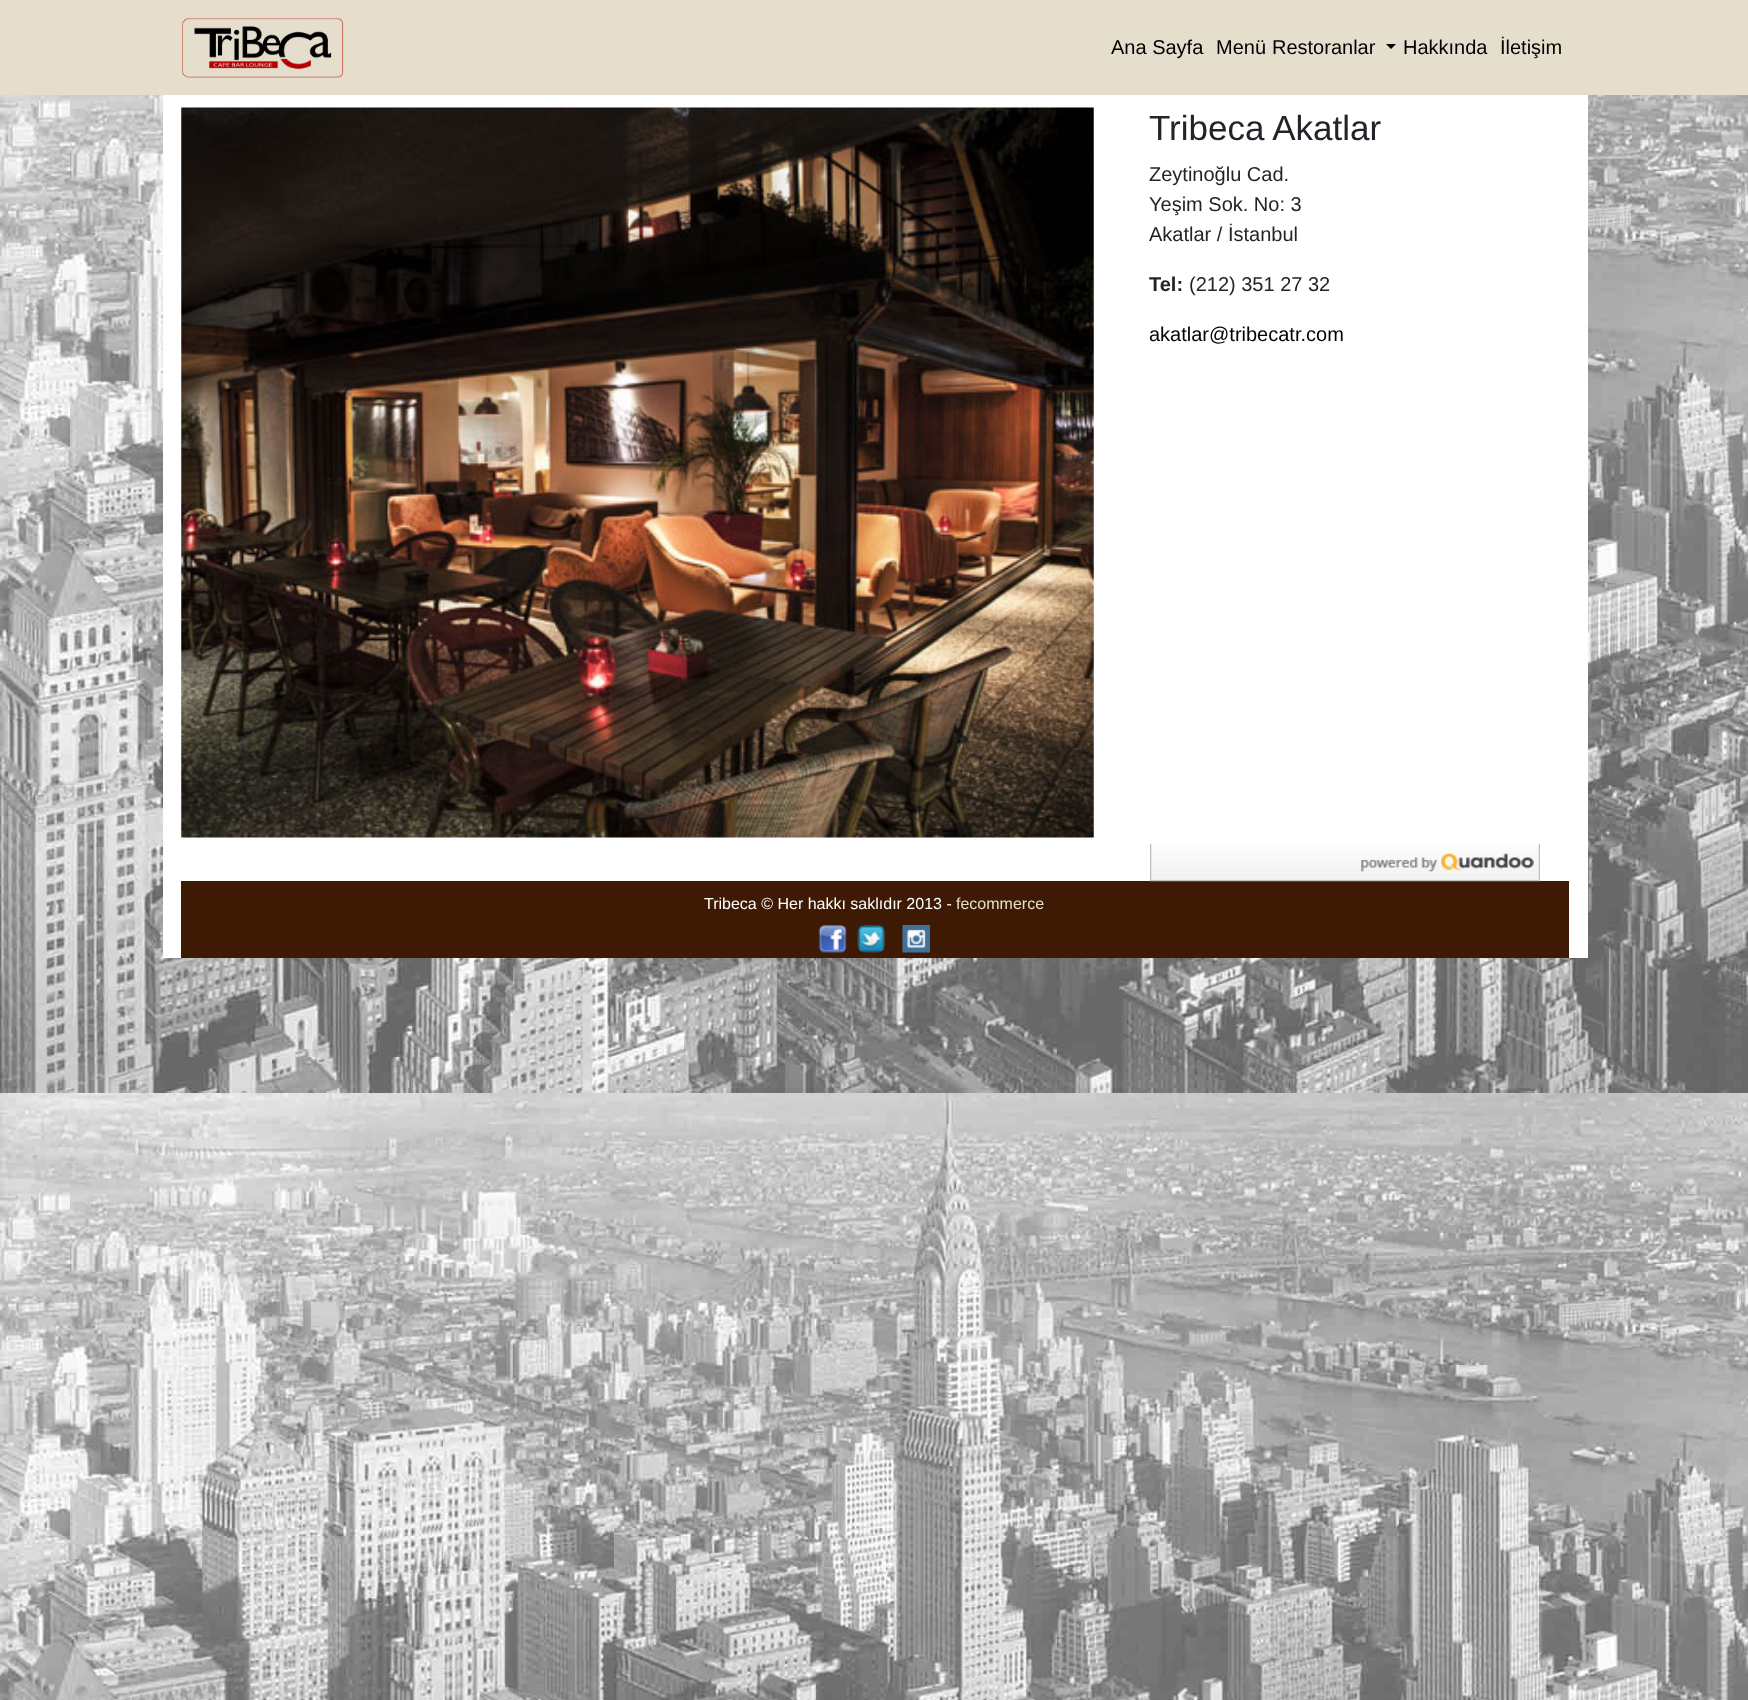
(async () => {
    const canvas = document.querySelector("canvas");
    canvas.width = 1748;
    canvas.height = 1700;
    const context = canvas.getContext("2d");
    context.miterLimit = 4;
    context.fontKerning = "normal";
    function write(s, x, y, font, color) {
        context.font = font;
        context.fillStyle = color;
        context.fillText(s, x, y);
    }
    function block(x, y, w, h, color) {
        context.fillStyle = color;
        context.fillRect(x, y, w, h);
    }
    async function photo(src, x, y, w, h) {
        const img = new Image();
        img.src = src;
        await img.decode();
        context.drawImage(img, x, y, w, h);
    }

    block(0, 0, 1748, 1700, "rgb(255, 255, 255)");
    await photo("media/1.png", 0, 95, 1748, 1605);
    block(163, 95, 1425, 863, "rgb(255, 255, 255)");
    block(0, 0, 1748, 95, "rgb(229, 222, 204)");
    await photo("media/2.png", 182, 17, 162, 61);
    write("Ana Sayfa", 1111, 54, "20px Liberation Sans", "rgb(0, 0, 0)");
    write("Menü", 1216, 54, "20px Liberation Sans", "rgb(0, 0, 0)");
    write("Restoranlar", 1272, 54, "20px Liberation Sans", "rgb(0, 0, 0)");
    context.beginPath();
    context.moveTo(1386, 44);
    context.lineTo(1396, 44);
    context.lineTo(1391, 49);
    context.closePath();
    context.fill();
    write("Hakkında", 1403, 54, "20px Liberation Sans", "rgb(0, 0, 0)");
    write("İletişim", 1500, 54, "20px Liberation Sans", "rgb(0, 0, 0)");
    await photo("media/3.png", 181, 107, 913, 731);
    write("Tribeca Akatlar", 1149, 140, "35px Liberation Sans", "rgb(33, 37, 41)");
    write("Zeytinoğlu Cad.", 1149, 181, "20px Liberation Sans", "rgb(33, 37, 41)");
    write("Yeşim Sok. No: 3", 1149, 211, "20px Liberation Sans", "rgb(33, 37, 41)");
    write("Akatlar / İstanbul", 1149, 241, "20px Liberation Sans", "rgb(33, 37, 41)");
    write("Tel:", 1149, 291, "bold 20px Liberation Sans", "rgb(33, 37, 41)");
    write("(212) 351 27 32", 1189, 291, "20px Liberation Sans", "rgb(33, 37, 41)");
    write("akatlar@tribecatr.com", 1149, 341, "20px Liberation Sans", "rgb(0, 0, 0)");
    block(181, 881, 1388, 77, "rgb(62, 26, 4)");
    await photo("media/4.png", 1150, 843, 390, 39);
    write("Tribeca © Her hakkı saklıdır 2013 -", 704, 909, "16px Liberation Sans", "rgb(255, 255, 255)");
    write("fecommerce", 956, 909, "16px Liberation Sans", "rgb(229, 222, 204)");
    await photo("media/5.png", 818, 925, 29, 28);
    await photo("media/6.png", 857, 925, 28, 28);
    await photo("media/7.png", 902, 925, 28, 28);
})();
